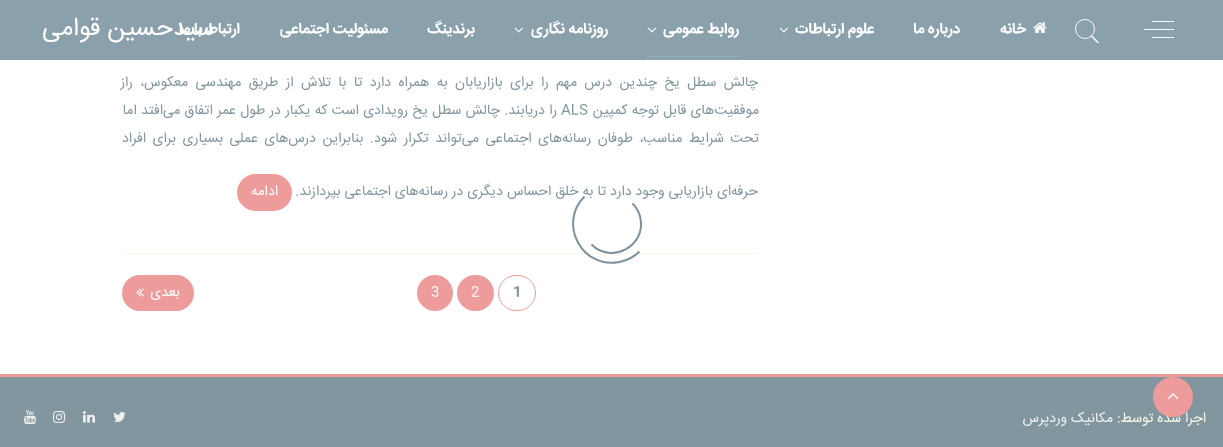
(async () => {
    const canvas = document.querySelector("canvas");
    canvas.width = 1223;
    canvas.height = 447;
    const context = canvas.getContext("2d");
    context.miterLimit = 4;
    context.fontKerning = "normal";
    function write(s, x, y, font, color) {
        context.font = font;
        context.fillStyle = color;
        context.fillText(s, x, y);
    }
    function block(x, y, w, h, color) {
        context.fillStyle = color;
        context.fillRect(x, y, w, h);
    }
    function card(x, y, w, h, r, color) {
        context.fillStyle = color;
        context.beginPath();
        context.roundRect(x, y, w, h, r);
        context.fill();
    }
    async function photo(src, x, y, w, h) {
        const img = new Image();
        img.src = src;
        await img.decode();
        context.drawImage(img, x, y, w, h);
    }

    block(0, 0, 1223, 447, "rgb(255, 255, 255)");
    block(0, 0, 1223, 60, "rgb(138, 161, 172)");
    block(1144, 29, 30, 1, "rgb(250, 250, 250)");
    block(1152, 21, 22, 1, "rgb(250, 250, 250)");
    block(1152, 37, 22, 1, "rgb(250, 250, 250)");
    context.beginPath();
    context.arc(1085, 29, 9.5, 0, Math.PI * 2);
    context.strokeStyle = "rgb(250, 250, 250)";
    context.stroke();
    context.beginPath();
    context.moveTo(1092, 35.5);
    context.lineTo(1099, 42.5);
    context.lineTo(1098, 43.5);
    context.lineTo(1091, 36.5);
    context.closePath();
    context.fill();
    await photo("media/1.png", 1033, 22, 14, 11);
    context.direction = "rtl";
    write("خانه", 1026, 33, "bold 15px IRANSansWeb", "rgb(255, 255, 255)");
    write("درباره ما", 960, 33, "bold 15px IRANSansWeb", "rgb(255, 255, 255)");
    write("علوم ارتباطات", 874, 33, "bold 15px IRANSansWeb", "rgb(255, 255, 255)");
    await photo("media/2.png", 779, 27, 9, 6);
    write("روابط عمومی", 739, 33, "bold 15px IRANSansWeb", "rgb(255, 255, 255)");
    await photo("media/2.png", 647, 27, 9, 6);
    block(647, 56, 92, 1, "rgb(145, 180, 183)");
    write("روزنامه نگاری", 608, 33, "bold 15px IRANSansWeb", "rgb(255, 255, 255)");
    await photo("media/2.png", 514, 27, 9, 6);
    write("برندینگ", 475, 33, "bold 15px IRANSansWeb", "rgb(255, 255, 255)");
    write("مسئولیت اجتماعی", 388, 33, "bold 15px IRANSansWeb", "rgb(255, 255, 255)");
    write("ارتباط با ما", 240, 33, "bold 15px IRANSansWeb", "rgb(255, 255, 255)");
    write("سیدحسین قوامی", 214, 35, "25px IRANSansWeb", "rgb(255, 255, 255)");
    block(122, 253, 637, 1, "rgb(248, 249, 231)");
    context.wordSpacing = "3.4px";
    write("چالش سطل یخ چندین درس مهم را برای بازاریابان به همراه دارد تا با تلاش از طریق مهندسی معکوس، راز", 758, 86, "14px IRANSansWeb", "rgb(130, 150, 159)");
    context.wordSpacing = "0.3px";
    write("موفقیت‌های قابل توجه کمپین", 759, 114, "14px IRANSansWeb", "rgb(130, 150, 159)");
    context.wordSpacing = "0px";
    context.direction = "ltr";
    write("ALS", 561, 114, "14px IRANSansWeb", "rgb(130, 150, 159)");
    context.wordSpacing = "0.3px";
    context.direction = "rtl";
    write("را دریابند. چالش سطل یخ رویدادی است که یکبار در طول عمر اتفاق می‌افتد اما", 557, 114, "14px IRANSansWeb", "rgb(130, 150, 159)");
    context.wordSpacing = "2.5px";
    write("تحت شرایط مناسب، طوفان رسانه‌های اجتماعی می‌تواند تکرار شود. بنابراین درس‌های عملی بسیاری برای افراد", 759, 142, "14px IRANSansWeb", "rgb(130, 150, 159)");
    context.wordSpacing = "0px";
    write("حرفه‌ای بازاریابی وجود دارد تا به خلق احساس دیگری در رسانه‌های اجتماعی بپردازند.", 758, 195, "14px IRANSansWeb", "rgb(130, 150, 159)");
    card(237, 174, 55, 37, 18.5, "rgb(238, 155, 155)");
    write("ادامه", 278, 195, "14px IRANSansWeb", "rgb(255, 255, 255)");
    context.beginPath();
    context.roundRect(498.5, 275.5, 37, 35, 17.5);
    context.strokeStyle = "rgb(238, 155, 155)";
    context.stroke();
    context.direction = "ltr";
    write("1", 513, 296, "bold 14px IRANSansWeb", "rgb(130, 150, 159)");
    card(457, 275, 37, 36, 18, "rgb(238, 155, 155)");
    write("2", 471, 296, "14px IRANSansWeb", "rgb(255, 255, 255)");
    context.fillStyle = "rgb(238, 155, 155)";
    context.beginPath();
    context.arc(435, 293, 18, 0, Math.PI * 2);
    context.fill();
    write("3", 431, 296, "14px IRANSansWeb", "rgb(255, 255, 255)");
    card(122, 275, 72, 36, 18, "rgb(238, 155, 155)");
    context.direction = "rtl";
    write("بعدی", 180, 296, "14px IRANSansWeb", "rgb(255, 255, 255)");
    await photo("media/3.png", 136, 288, 8, 9);
    block(0, 377, 1223, 70, "rgb(130, 150, 159)");
    block(0, 374, 1223, 3, "rgb(238, 155, 155)");
    write("اجرا شده توسط:", 1206, 422, "14px IRANSansWeb", "rgb(248, 249, 231)");
    write("مکانیک وردپرس", 1113, 422, "14px IRANSansWeb", "rgb(242, 241, 241)");
    await photo("media/4.png", 113, 412, 13, 10);
    await photo("media/5.png", 83, 411, 12, 12);
    await photo("media/6.png", 53, 411, 12, 12);
    await photo("media/7.png", 24, 410, 12, 14);
    context.beginPath();
    context.moveTo(639.5, 251.5);
    context.bezierCurveTo(634, 257, 627, 260.5, 619.5, 262);
    context.bezierCurveTo(582, 269.5, 557.5, 223.5, 584.5, 196.5);
    context.strokeStyle = "rgba(0, 41, 60, 0.51)";
    context.lineWidth = 2;
    context.stroke();
    context.beginPath();
    context.moveTo(632.5, 203.5);
    context.bezierCurveTo(636.5, 207.5, 639.5, 212.5, 640.5, 218.5);
    context.bezierCurveTo(646, 246, 611.5, 264.5, 591.5, 244.5);
    context.stroke();
    context.fillStyle = "rgb(238, 155, 155)";
    context.beginPath();
    context.arc(1173, 397, 20, 0, Math.PI * 2);
    context.fill();
    await photo("media/8.png", 1167, 393, 12, 7);
})();
